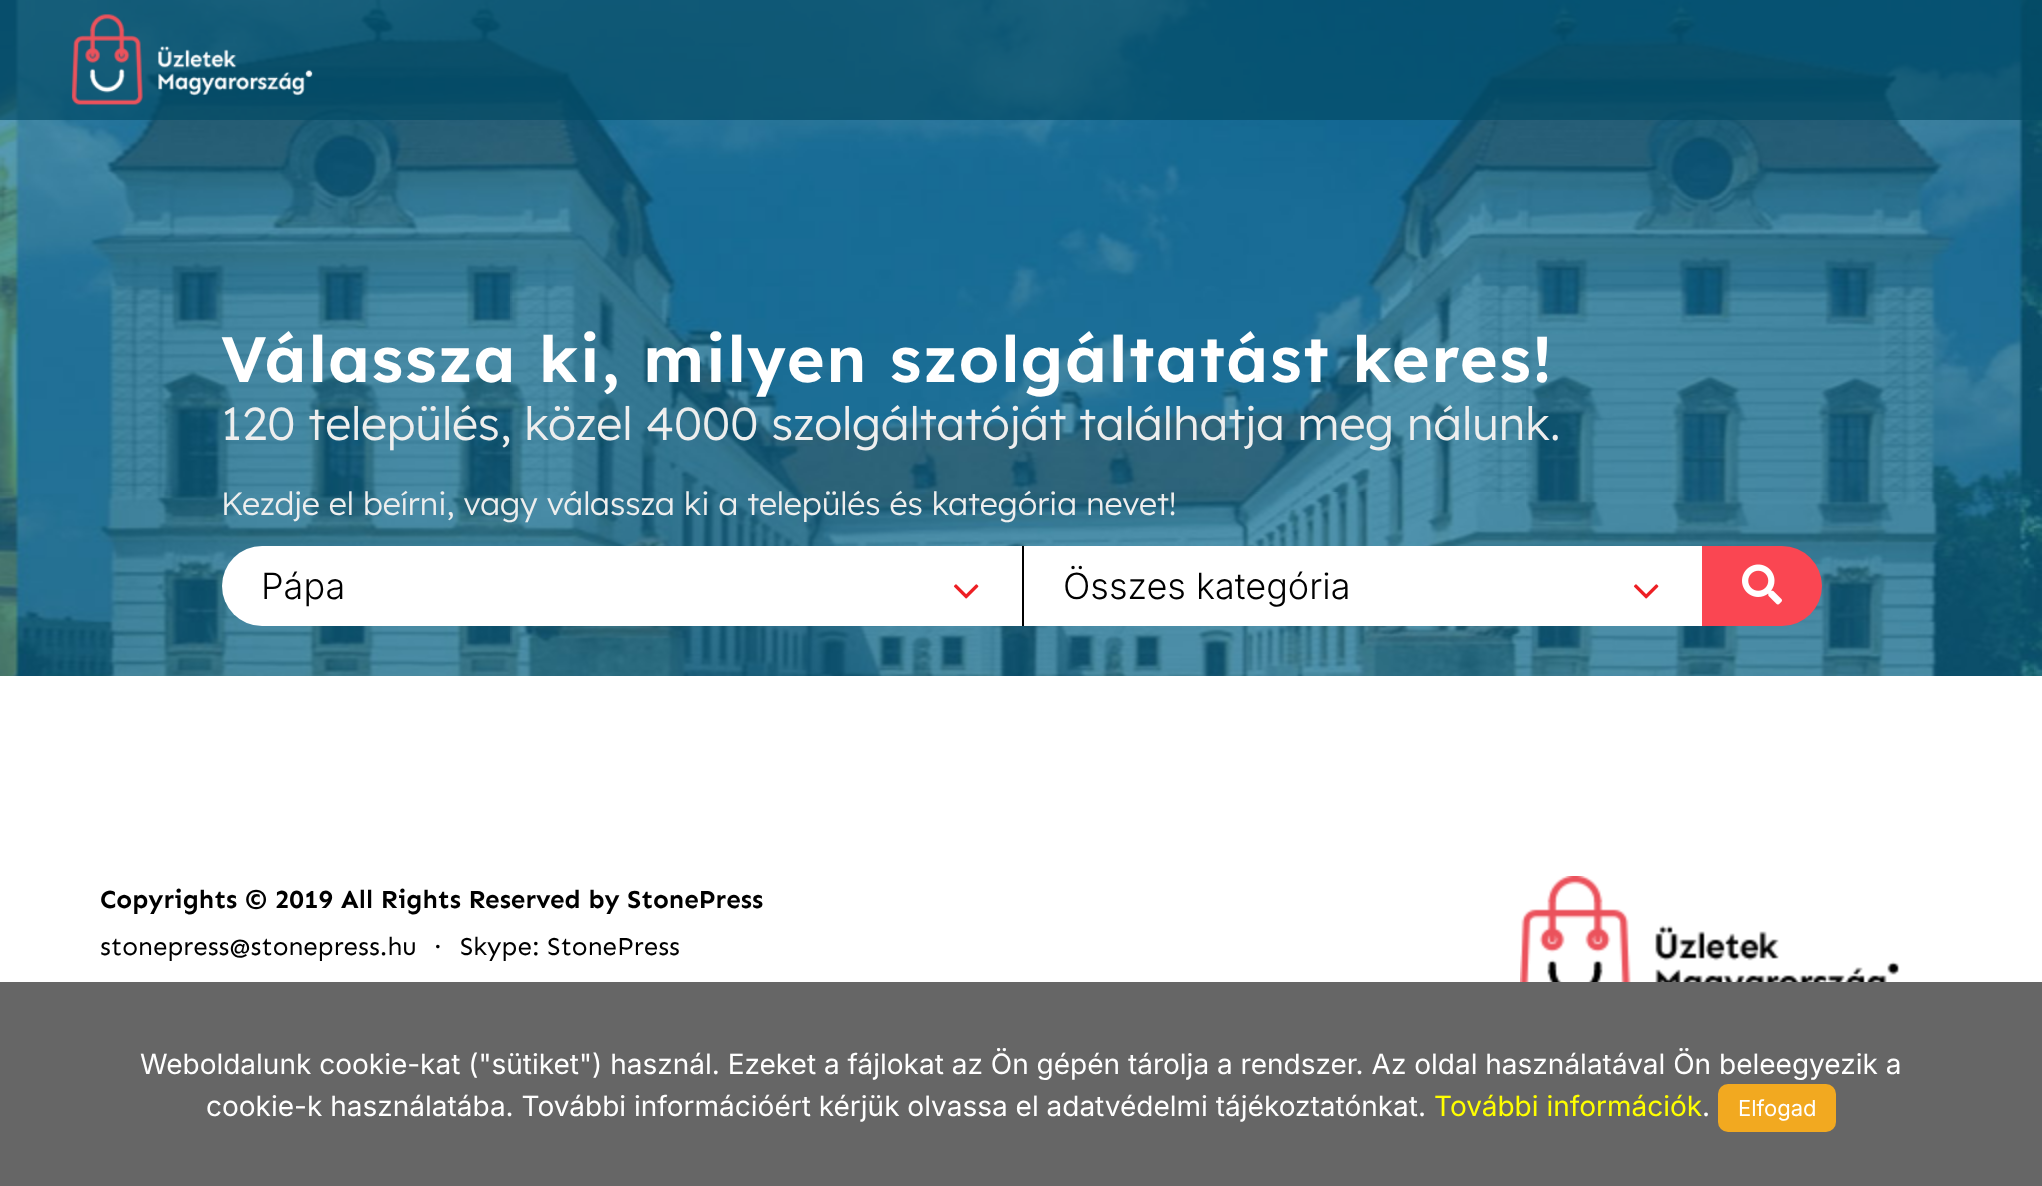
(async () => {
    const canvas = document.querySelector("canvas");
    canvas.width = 2042;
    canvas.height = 1186;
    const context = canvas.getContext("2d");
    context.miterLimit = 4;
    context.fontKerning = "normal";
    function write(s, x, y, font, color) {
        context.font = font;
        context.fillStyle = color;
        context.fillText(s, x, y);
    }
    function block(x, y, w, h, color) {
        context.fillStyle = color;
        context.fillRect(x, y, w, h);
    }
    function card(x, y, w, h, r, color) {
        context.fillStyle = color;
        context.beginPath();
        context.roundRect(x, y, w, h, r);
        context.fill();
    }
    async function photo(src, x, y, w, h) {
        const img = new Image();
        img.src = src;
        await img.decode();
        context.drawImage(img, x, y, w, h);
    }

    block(0, 0, 2042, 1186, "rgb(255, 255, 255)");
    await photo("media/2.png", 0, 0, 2042, 676);
    block(0, 0, 2042, 120, "rgba(2, 73, 100, 0.68)");
    await photo("media/1.png", 71, 14, 242, 91);
    context.letterSpacing = "2px";
    write("Válassza ki, milyen szolgáltatást keres!", 221, 382, "600 64px Lexend", "rgb(255, 255, 255)");
    context.letterSpacing = "0px";
    write("120 település, közel 4000 szolgáltatóját találhatja meg nálunk.", 221, 440, "300 46px Lexend", "rgb(238, 238, 238)");
    write("Kezdje el beírni, vagy válassza ki a település és kategória nevet!", 221, 515, "300 32px Lexend", "rgb(238, 238, 238)");
    context.fillStyle = "rgb(255, 255, 255)";
    context.beginPath();
    context.roundRect(222, 546, 800, 80, [40, 0, 0, 40]);
    context.fill();
    write("Pápa", 261, 599, "300 36px Inter", "rgb(0, 0, 0)");
    await photo("media/3.png", 953, 584, 26, 15);
    block(1024, 546, 678, 80, "rgb(255, 255, 255)");
    block(1022, 546, 2, 80, "rgb(0, 0, 0)");
    write("Összes kategória", 1063, 599, "300 36px Inter", "rgb(0, 0, 0)");
    await photo("media/3.png", 1633, 584, 26, 15);
    context.fillStyle = "rgb(250, 70, 82)";
    context.beginPath();
    context.roundRect(1702, 546, 120, 80, [0, 40, 40, 0]);
    context.fill();
    await photo("media/4.png", 1742, 564, 40, 41);
    write("Copyrights © 2019 All Rights Reserved by StonePress", 100, 908, "bold 26px Sen", "rgb(0, 0, 0)");
    write("stonepress@stonepress.hu", 100, 955, "26px Sen", "rgb(0, 0, 0)");
    write("·", 434, 955, "26px Sen", "rgb(0, 0, 0)");
    write("Skype: StonePress", 460, 955, "26px Sen", "rgb(0, 0, 0)");
    await photo("media/5.png", 1520, 876, 380, 106);
    block(0, 982, 2042, 204, "rgb(102, 102, 102)");
    write("Weboldalunk cookie-kat (\"sütiket\") használ. Ezeket a fájlokat az Ön gépén tárolja a rendszer. Az oldal használatával Ön beleegyezik a", 140, 1074, "28px Inter", "rgb(255, 255, 255)");
    write("cookie-k használatába. További információért kérjük olvassa el adatvédelmi tájékoztatónkat.", 206, 1116, "28px Inter", "rgb(255, 255, 255)");
    write("További információk", 1434, 1116, "28px Inter", "rgb(255, 255, 0)");
    write(".", 1702, 1116, "28px Inter", "rgb(255, 255, 255)");
    card(1718, 1084, 118, 48, 10, "rgb(242, 169, 32)");
    write("Elfogad", 1738, 1116, "22px Inter", "rgb(255, 255, 255)");
})();
